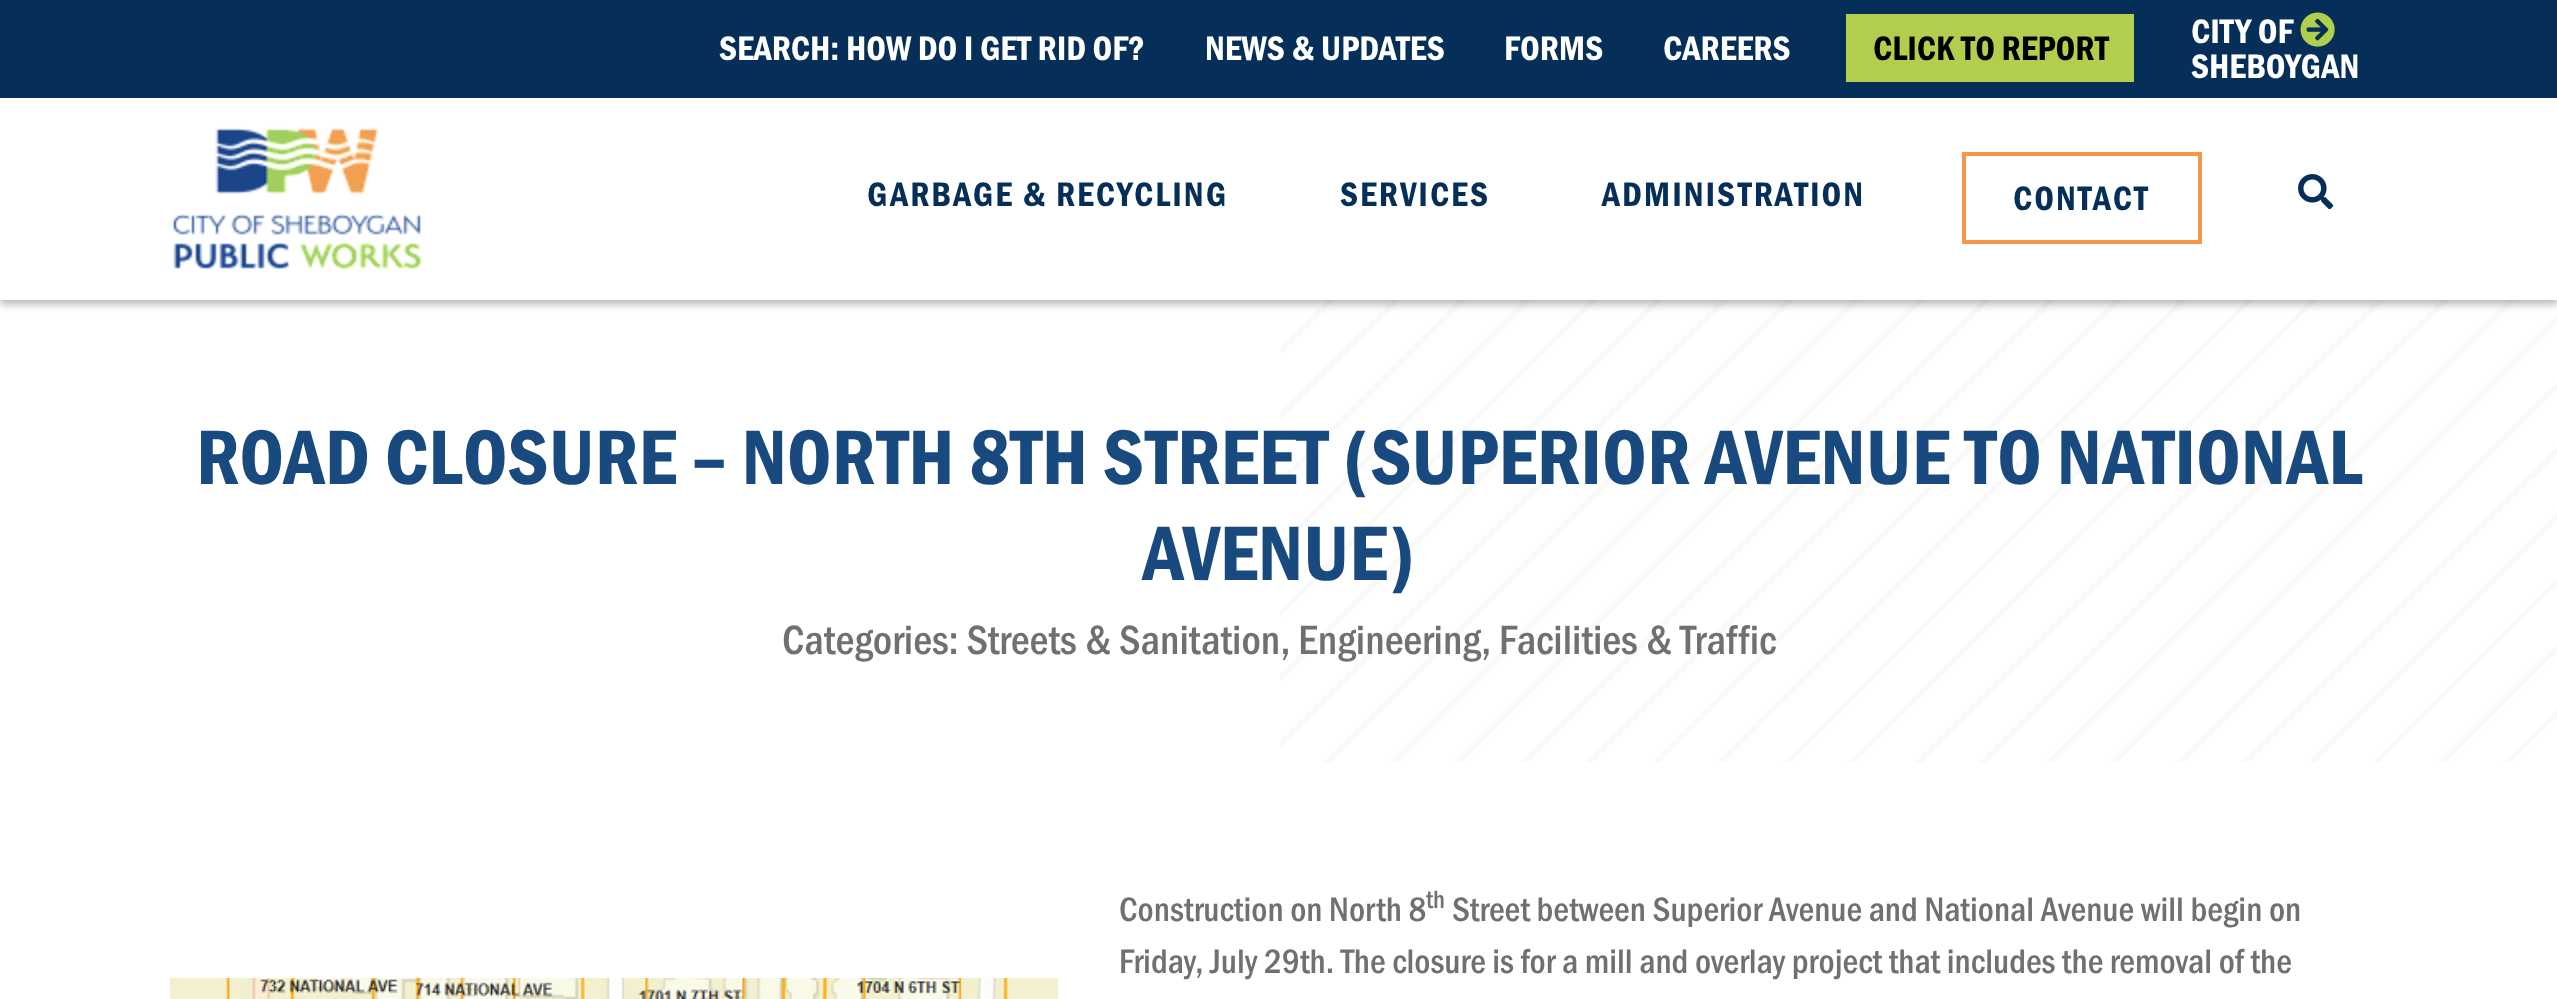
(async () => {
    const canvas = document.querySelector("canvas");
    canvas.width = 2557;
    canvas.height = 999;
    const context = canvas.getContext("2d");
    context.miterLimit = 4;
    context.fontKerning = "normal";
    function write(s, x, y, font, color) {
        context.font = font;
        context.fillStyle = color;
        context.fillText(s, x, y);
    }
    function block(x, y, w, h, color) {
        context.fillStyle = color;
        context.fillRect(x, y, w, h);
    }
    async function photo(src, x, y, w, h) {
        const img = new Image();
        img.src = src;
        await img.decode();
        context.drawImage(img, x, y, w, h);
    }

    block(0, 0, 2557, 999, "rgb(255, 255, 255)");
    await photo("media/4.png", 1280, 300, 1277, 462);
    context.fillStyle = "rgba(0, 0, 0, 0.3)";
    context.filter = "blur(4px)";
    context.beginPath();
    context.rect(0, 4, 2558, 300);
    context.fill();
    context.filter = "none";
    block(0, 98, 2557, 202, "rgb(255, 255, 255)");
    block(0, 0, 2557, 98, "rgb(5, 47, 89)");
    write("SEARCH: HOW DO I GET RID OF?", 719, 60, "35.2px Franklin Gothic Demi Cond", "rgb(255, 255, 255)");
    write("NEWS & UPDATES", 1205, 60, "35.2px Franklin Gothic Demi Cond", "rgb(255, 255, 255)");
    write("FORMS", 1504, 60, "35.2px Franklin Gothic Demi Cond", "rgb(255, 255, 255)");
    write("CAREERS", 1663, 60, "35.2px Franklin Gothic Demi Cond", "rgb(255, 255, 255)");
    block(1846, 14, 288, 68, "rgb(177, 206, 76)");
    write("CLICK TO REPORT", 1873, 60, "35.2px Franklin Gothic Demi Cond", "rgb(0, 0, 0)");
    write("CITY OF", 2191, 43, "35.2px Franklin Gothic Demi Cond", "rgb(255, 255, 255)");
    await photo("media/1.png", 2300, 12, 35, 35);
    write("SHEBOYGAN", 2191, 78, "35.2px Franklin Gothic Demi Cond", "rgb(255, 255, 255)");
    await photo("media/2.png", 172, 127, 251, 143);
    context.letterSpacing = "2px";
    write("GARBAGE & RECYCLING", 867, 206, "35.2px Franklin Gothic Demi Cond", "rgb(5, 47, 89)");
    write("SERVICES", 1340, 206, "35.2px Franklin Gothic Demi Cond", "rgb(5, 47, 89)");
    write("ADMINISTRATION", 1602, 206, "35.2px Franklin Gothic Demi Cond", "rgb(5, 47, 89)");
    context.strokeStyle = "rgb(247, 150, 74)";
    context.lineWidth = 4;
    context.strokeRect(1964, 154, 236, 88);
    write("CONTACT", 2013, 210, "35.2px Franklin Gothic Demi Cond", "rgb(5, 47, 89)");
    await photo("media/3.png", 2298, 174, 36, 36);
    context.letterSpacing = "0px";
    write("ROAD CLOSURE – NORTH 8TH STREET (SUPERIOR AVENUE TO NATIONAL", 196, 484, "80px Franklin Gothic Demi Cond", "rgb(25, 74, 127)");
    write("AVENUE)", 1143, 580, "80px Franklin Gothic Demi Cond", "rgb(25, 74, 127)");
    write("Categories: Streets & Sanitation, Engineering, Facilities & Traffic", 782, 654, "500 42.25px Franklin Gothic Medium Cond", "rgb(112, 112, 112)");
    write("Construction on North 8", 1119, 921, "500 35.2px Franklin Gothic Medium Cond", "rgb(112, 112, 112)");
    write("th", 1426, 908, "500 26px Franklin Gothic Medium Cond", "rgb(112, 112, 112)");
    write("Street between Superior Avenue and National Avenue will begin on", 1452, 921, "500 35.2px Franklin Gothic Medium Cond", "rgb(112, 112, 112)");
    write("Friday, July 29th. The closure is for a mill and overlay project that includes the removal of the", 1119, 973, "500 35.2px Franklin Gothic Medium Cond", "rgb(112, 112, 112)");
    await photo("media/5.png", 170, 978, 888, 21);
})();
